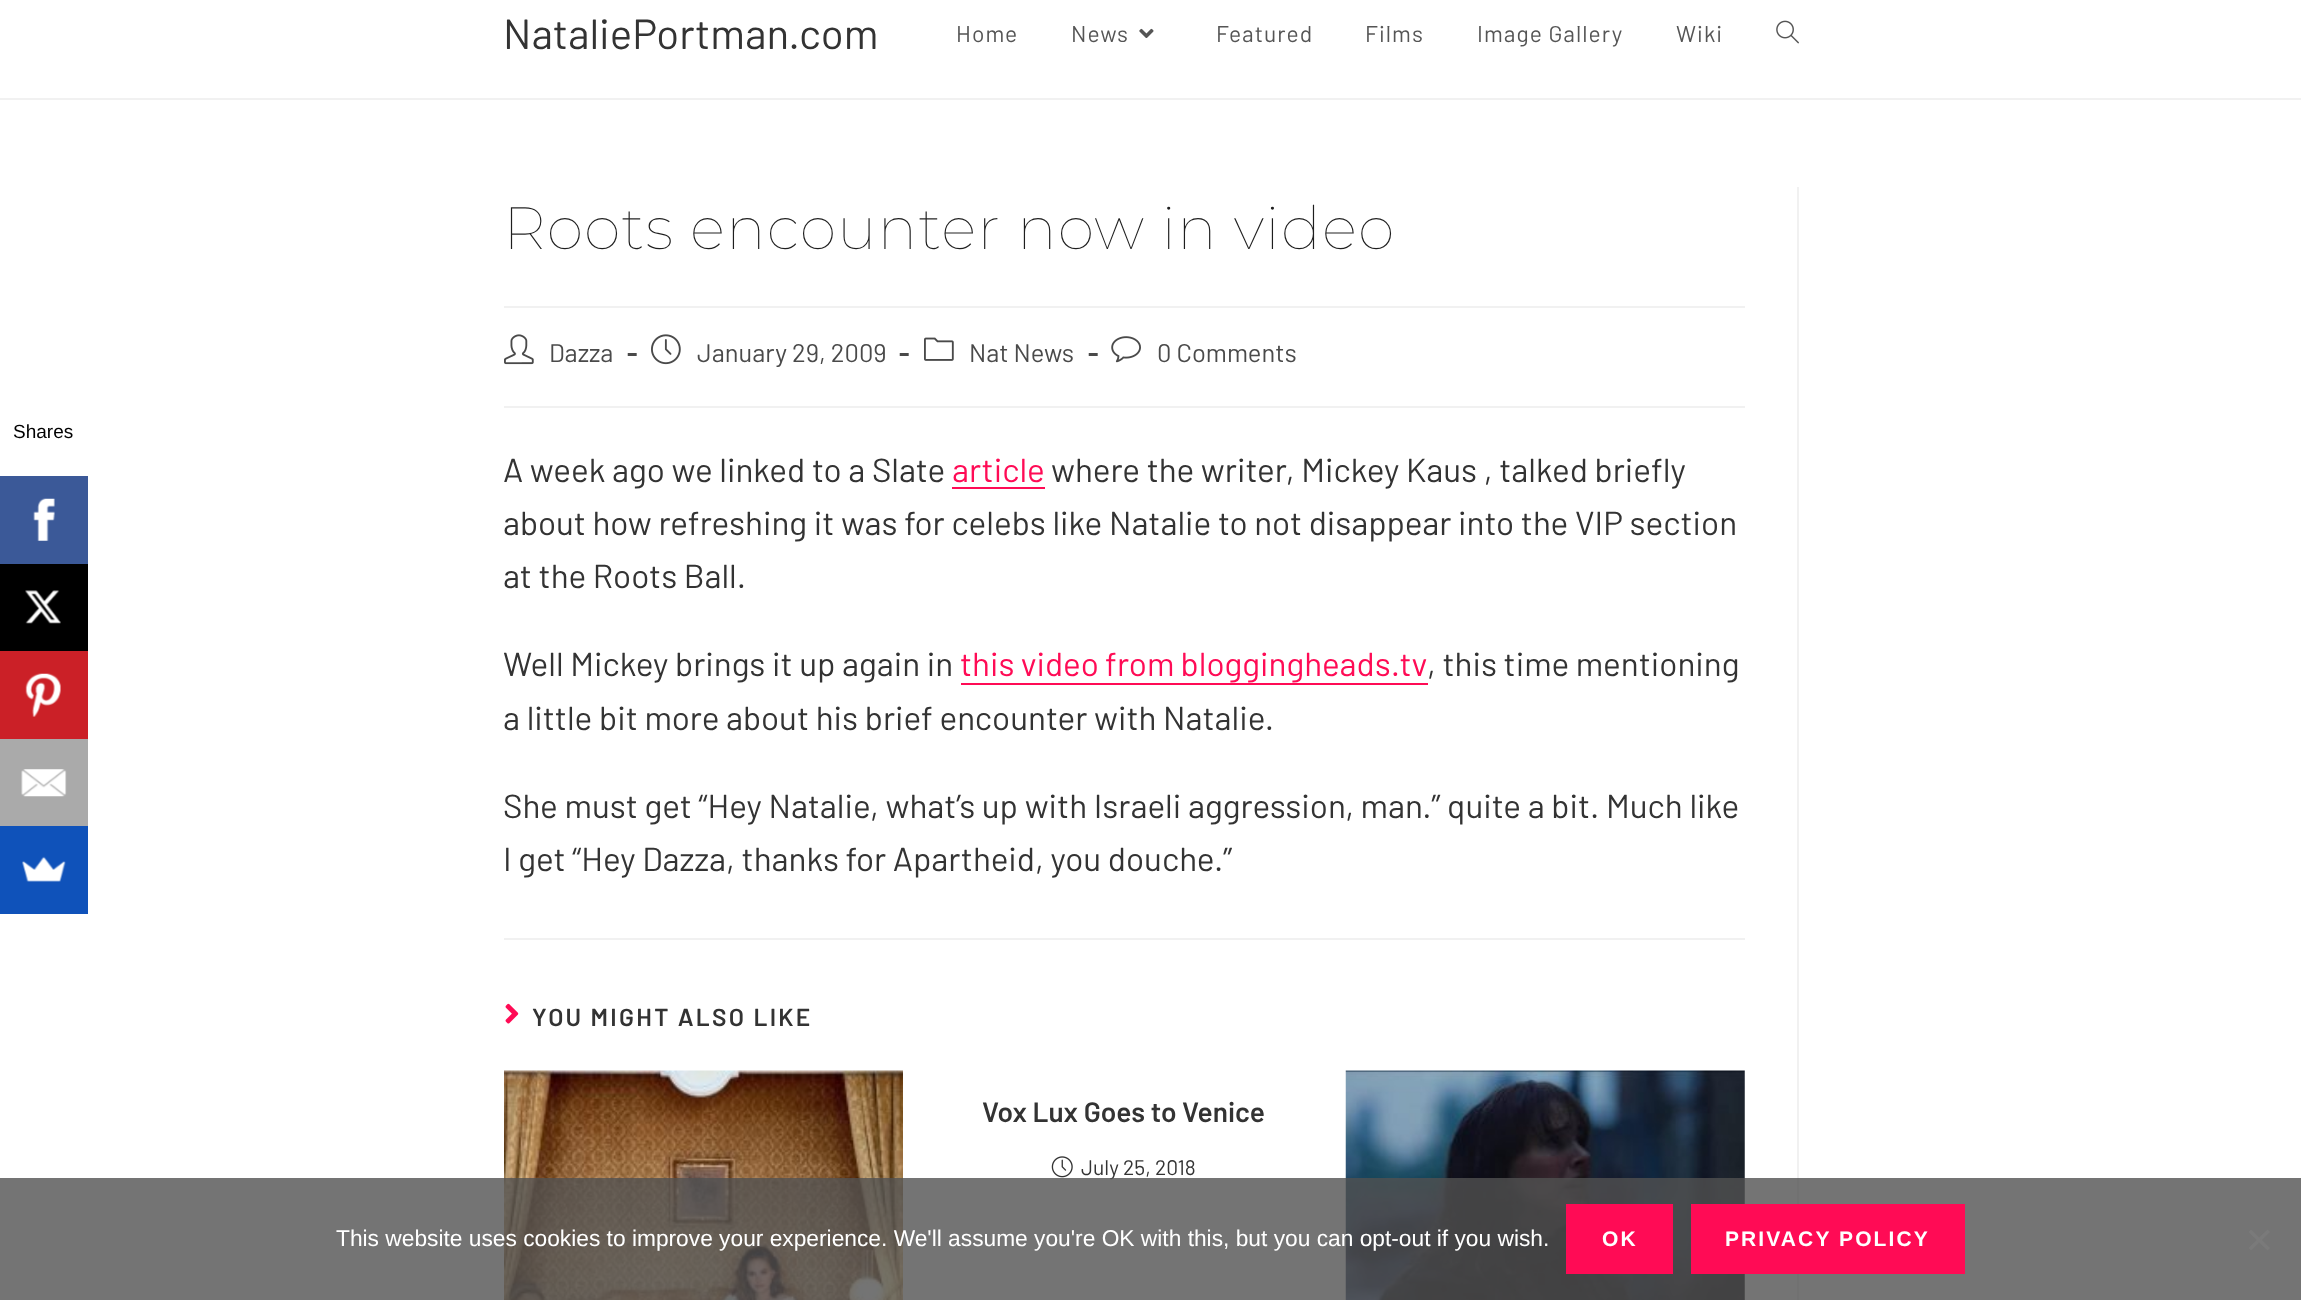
(async () => {
    const canvas = document.querySelector("canvas");
    canvas.width = 2301;
    canvas.height = 1300;
    const context = canvas.getContext("2d");
    context.miterLimit = 4;
    context.fontKerning = "normal";
    function write(s, x, y, font, color) {
        context.font = font;
        context.fillStyle = color;
        context.fillText(s, x, y);
    }
    function block(x, y, w, h, color) {
        context.fillStyle = color;
        context.fillRect(x, y, w, h);
    }
    async function photo(src, x, y, w, h) {
        const img = new Image();
        img.src = src;
        await img.decode();
        context.drawImage(img, x, y, w, h);
    }

    block(0, 0, 2301, 1300, "rgb(255, 255, 255)");
    write("Shares", 13, 438, "19px Liberation Sans", "rgb(0, 0, 0)");
    block(0, 476, 88, 88, "rgb(59, 89, 152)");
    await photo("media/1.png", 33, 498, 22, 43);
    block(0, 564, 88, 87, "rgb(0, 0, 0)");
    await photo("media/2.png", 25, 590, 36, 34);
    block(0, 651, 88, 88, "rgb(203, 32, 39)");
    await photo("media/3.png", 25, 673, 36, 44);
    block(0, 739, 88, 87, "rgb(170, 170, 170)");
    await photo("media/4.png", 21, 769, 46, 28);
    block(0, 826, 88, 88, "rgb(15, 82, 186)");
    await photo("media/5.png", 22, 856, 44, 26);
    block(0, 98, 2301, 2, "rgb(241, 241, 241)");
    write("NataliePortman.com", 503, 49, "42px Barlow", "rgb(51, 51, 51)");
    context.letterSpacing = "1.05px";
    write("Home", 956, 42, "22.75px Barlow", "rgb(85, 85, 85)");
    write("News", 1071, 42, "22.75px Barlow", "rgb(85, 85, 85)");
    await photo("media/6.png", 1139, 28, 15, 10);
    write("Featured", 1216, 42, "22.75px Barlow", "rgb(85, 85, 85)");
    write("Films", 1365, 42, "22.75px Barlow", "rgb(85, 85, 85)");
    write("Image Gallery", 1477, 42, "22.75px Barlow", "rgb(85, 85, 85)");
    write("Wiki", 1676, 42, "22.75px Barlow", "rgb(85, 85, 85)");
    await photo("media/7.png", 1776, 20, 23, 24);
    block(1797, 187, 2, 1113, "rgb(241, 241, 241)");
    block(504, 306, 1241, 2, "rgb(241, 241, 241)");
    write("Roots encounter now in video", 503, 249, "100 59.5px Montserrat", "rgb(30, 30, 30)");
    block(504, 406, 1241, 2, "rgb(241, 241, 241)");
    await photo("media/8.png", 504, 334, 30, 31);
    context.letterSpacing = "0px";
    write("Dazza", 549, 362, "25.5px Barlow", "rgb(74, 74, 74)");
    write("-", 627, 362, "bold 25.5px Barlow", "rgb(74, 74, 74)");
    await photo("media/9.png", 651, 334, 30, 31);
    write("January 29, 2009", 697, 362, "25.5px Barlow", "rgb(74, 74, 74)");
    write("-", 899, 362, "bold 25.5px Barlow", "rgb(74, 74, 74)");
    await photo("media/10.png", 924, 337, 30, 24);
    write("Nat News", 969, 362, "25.5px Barlow", "rgb(74, 74, 74)");
    write("-", 1088, 362, "bold 25.5px Barlow", "rgb(74, 74, 74)");
    await photo("media/11.png", 1111, 336, 30, 27);
    write("0 Comments", 1157, 362, "25.5px Barlow", "rgb(74, 74, 74)");
    write("A week ago we linked to a Slate", 503, 482, "33.25px Barlow", "rgb(51, 51, 51)");
    write("article", 952, 482, "33.25px Barlow", "rgb(255, 11, 85)");
    block(952, 487, 93, 2, "rgb(255, 11, 85)");
    write("where the writer, Mickey Kaus , talked briefly", 1051, 482, "33.25px Barlow", "rgb(51, 51, 51)");
    write("about how refreshing it was for celebs like Natalie to not disappear into the VIP section", 503, 535, "33.25px Barlow", "rgb(51, 51, 51)");
    write("at the Roots Ball.", 503, 588, "33.25px Barlow", "rgb(51, 51, 51)");
    write("Well Mickey brings it up again in", 503, 676, "33.25px Barlow", "rgb(51, 51, 51)");
    context.wordSpacing = "-0.5px";
    write("this video from bloggingheads.tv", 960, 676, "33.25px Barlow", "rgb(255, 11, 85)");
    block(961, 683, 467, 2, "rgb(255, 11, 85)");
    context.wordSpacing = "0px";
    write(", this time mentioning", 1427, 676, "33.25px Barlow", "rgb(51, 51, 51)");
    write("a little bit more about his brief encounter with Natalie.", 503, 730, "33.25px Barlow", "rgb(51, 51, 51)");
    write("She must get “Hey Natalie, what’s up with Israeli aggression, man.” quite a bit. Much like", 503, 818, "33.25px Barlow", "rgb(51, 51, 51)");
    write("I get “Hey Dazza, thanks for Apartheid, you douche.”", 503, 871, "33.25px Barlow", "rgb(51, 51, 51)");
    block(504, 938, 1241, 2, "rgb(241, 241, 241)");
    await photo("media/12.png", 505, 1003, 14, 21);
    context.letterSpacing = "2.25px";
    write("YOU MIGHT ALSO LIKE", 532, 1026, "600 24.5px Barlow", "rgb(51, 51, 51)");
    await photo("media/13.png", 504, 1070, 399, 230);
    context.letterSpacing = "0px";
    write("Vox Lux Goes to Venice", 982, 1122, "600 28px Barlow", "rgb(51, 51, 51)");
    await photo("media/14.png", 1051, 1156, 22, 22);
    write("July 25, 2018", 1081, 1175, "21px Barlow", "rgb(51, 51, 51)");
    await photo("media/15.png", 1345, 1070, 400, 230);
    block(0, 1178, 2301, 122, "rgba(81, 81, 81, 0.8)");
    write("This website uses cookies to improve your experience. We'll assume you're OK with this, but you can opt-out if you wish.", 336, 1246, "22.75px Liberation Sans", "rgb(255, 255, 255)");
    block(1566, 1204, 107, 70, "rgb(255, 11, 85)");
    context.letterSpacing = "2.1px";
    write("OK", 1602, 1246, "bold 21px Liberation Sans", "rgb(255, 255, 255)");
    block(1691, 1204, 274, 70, "rgb(255, 11, 85)");
    write("PRIVACY POLICY", 1725, 1246, "bold 21px Liberation Sans", "rgb(255, 255, 255)");
    context.fillStyle = "rgb(122, 122, 122)";
    context.beginPath();
    context.moveTo(2267.5, 1229.5);
    context.lineTo(2270, 1232);
    context.lineTo(2251, 1250.5);
    context.lineTo(2248.5, 1248);
    context.closePath();
    context.fill();
    context.beginPath();
    context.moveTo(2248.5, 1232);
    context.lineTo(2251, 1229.5);
    context.lineTo(2270, 1248);
    context.lineTo(2267.5, 1250.5);
    context.closePath();
    context.fill();
})();
